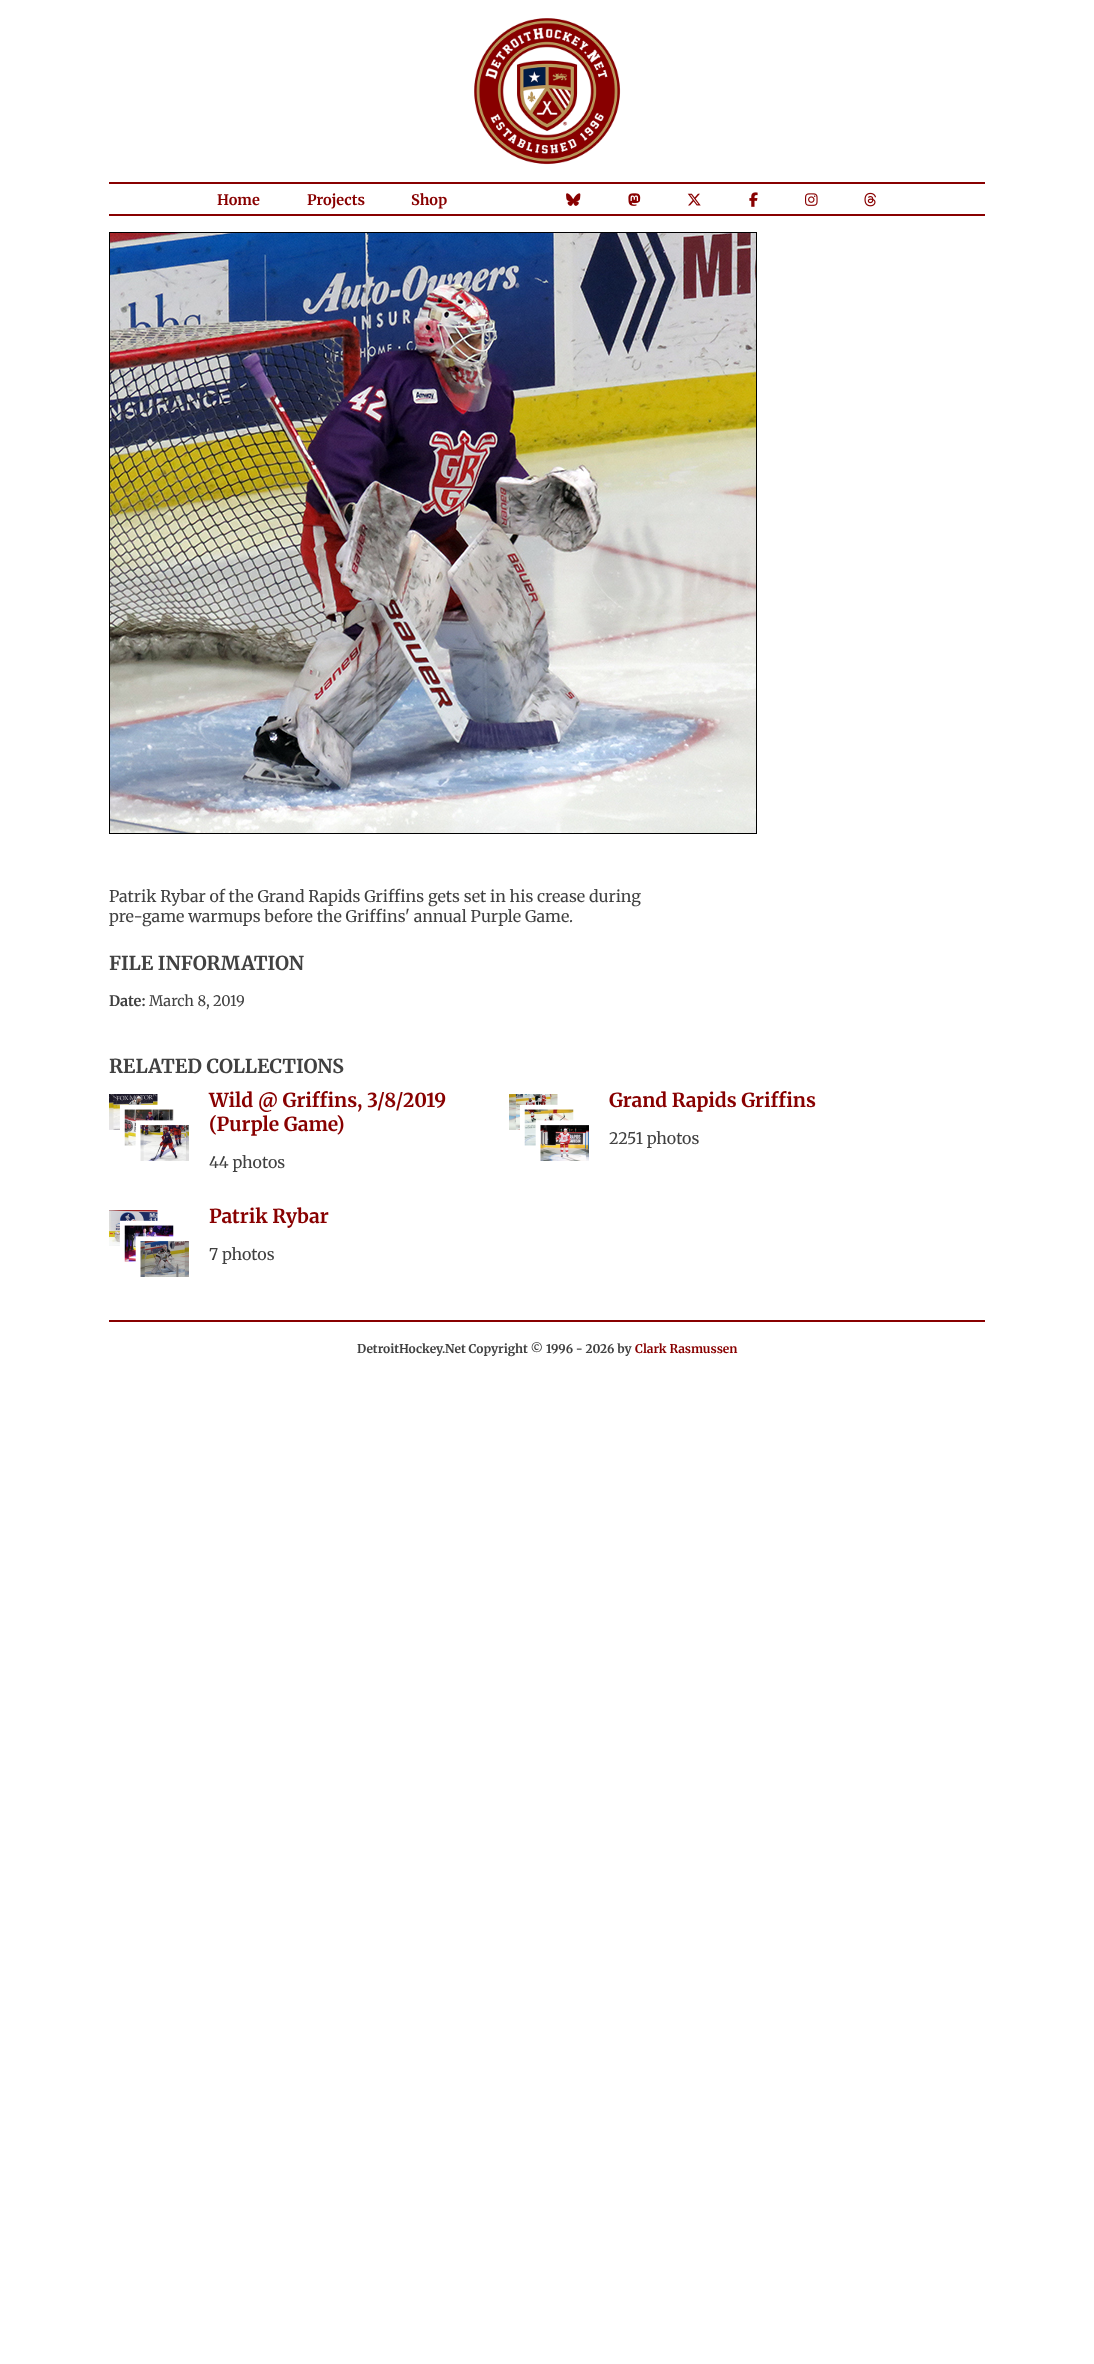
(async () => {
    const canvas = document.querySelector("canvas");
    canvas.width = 1094;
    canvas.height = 2364;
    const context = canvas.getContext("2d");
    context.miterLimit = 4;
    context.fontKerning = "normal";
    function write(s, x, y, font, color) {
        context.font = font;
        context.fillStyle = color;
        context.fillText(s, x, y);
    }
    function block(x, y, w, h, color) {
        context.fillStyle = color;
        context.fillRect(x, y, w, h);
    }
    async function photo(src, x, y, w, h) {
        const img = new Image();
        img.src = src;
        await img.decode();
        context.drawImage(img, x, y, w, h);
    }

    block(0, 0, 1094, 2364, "rgb(255, 255, 255)");
    await photo("media/1.png", 474, 18, 147, 147);
    block(109, 182, 876, 2, "rgb(136, 0, 0)");
    block(109, 214, 876, 2, "rgb(136, 0, 0)");
    write("Home", 217, 205, "bold 14.5px Merriweather", "rgb(136, 0, 0)");
    write("Projects", 307, 205, "bold 14.5px Merriweather", "rgb(136, 0, 0)");
    write("Shop", 411, 205, "bold 14.5px Merriweather", "rgb(136, 0, 0)");
    await photo("media/2.png", 566, 193, 15, 13);
    await photo("media/3.png", 628, 193, 13, 13);
    await photo("media/4.png", 687, 193, 14, 13);
    await photo("media/5.png", 749, 192, 9, 15);
    await photo("media/6.png", 805, 193, 13, 13);
    await photo("media/7.png", 864, 192, 12, 15);
    context.strokeStyle = "rgb(0, 0, 0)";
    context.strokeRect(109.5, 232.5, 647, 601);
    await photo("media/8.png", 110, 233, 646, 600);
    write("Patrik Rybar of the Grand Rapids Griffins gets set in his crease during", 109, 902, "16px Merriweather", "rgb(65, 65, 65)");
    write("pre-game warmups before the Griffins' annual Purple Game.", 109, 922, "16px Merriweather", "rgb(65, 65, 65)");
    write("FILE INFORMATION", 109, 970, "bold 19.25px Merriweather", "rgb(65, 65, 65)");
    write("Date:", 109, 1006, "bold 14.5px Merriweather", "rgb(65, 65, 65)");
    write("March 8, 2019", 149, 1006, "14.5px Merriweather", "rgb(65, 65, 65)");
    write("RELATED COLLECTIONS", 109, 1073, "bold 19.25px Merriweather", "rgb(65, 65, 65)");
    await photo("media/9.png", 109, 1094, 80, 67);
    write("Wild @ Griffins, 3/8/2019", 209, 1107, "bold 19.25px Merriweather", "rgb(136, 0, 0)");
    write("(Purple Game)", 209, 1131, "bold 19.25px Merriweather", "rgb(136, 0, 0)");
    write("44 photos", 209, 1168, "16px Merriweather", "rgb(65, 65, 65)");
    await photo("media/10.png", 509, 1094, 80, 67);
    write("Grand Rapids Griffins", 609, 1107, "bold 19.25px Merriweather", "rgb(136, 0, 0)");
    write("2251 photos", 609, 1144, "16px Merriweather", "rgb(65, 65, 65)");
    await photo("media/11.png", 109, 1210, 80, 67);
    write("Patrik Rybar", 209, 1223, "bold 19.25px Merriweather", "rgb(136, 0, 0)");
    write("7 photos", 209, 1260, "16px Merriweather", "rgb(65, 65, 65)");
    block(109, 1320, 876, 2, "rgb(136, 0, 0)");
    write("DetroitHockey.Net Copyright © 1996 - 2026 by", 357, 1353, "bold 12px Merriweather", "rgb(65, 65, 65)");
    write("Clark Rasmussen", 635, 1353, "bold 12px Merriweather", "rgb(136, 0, 0)");
})();
